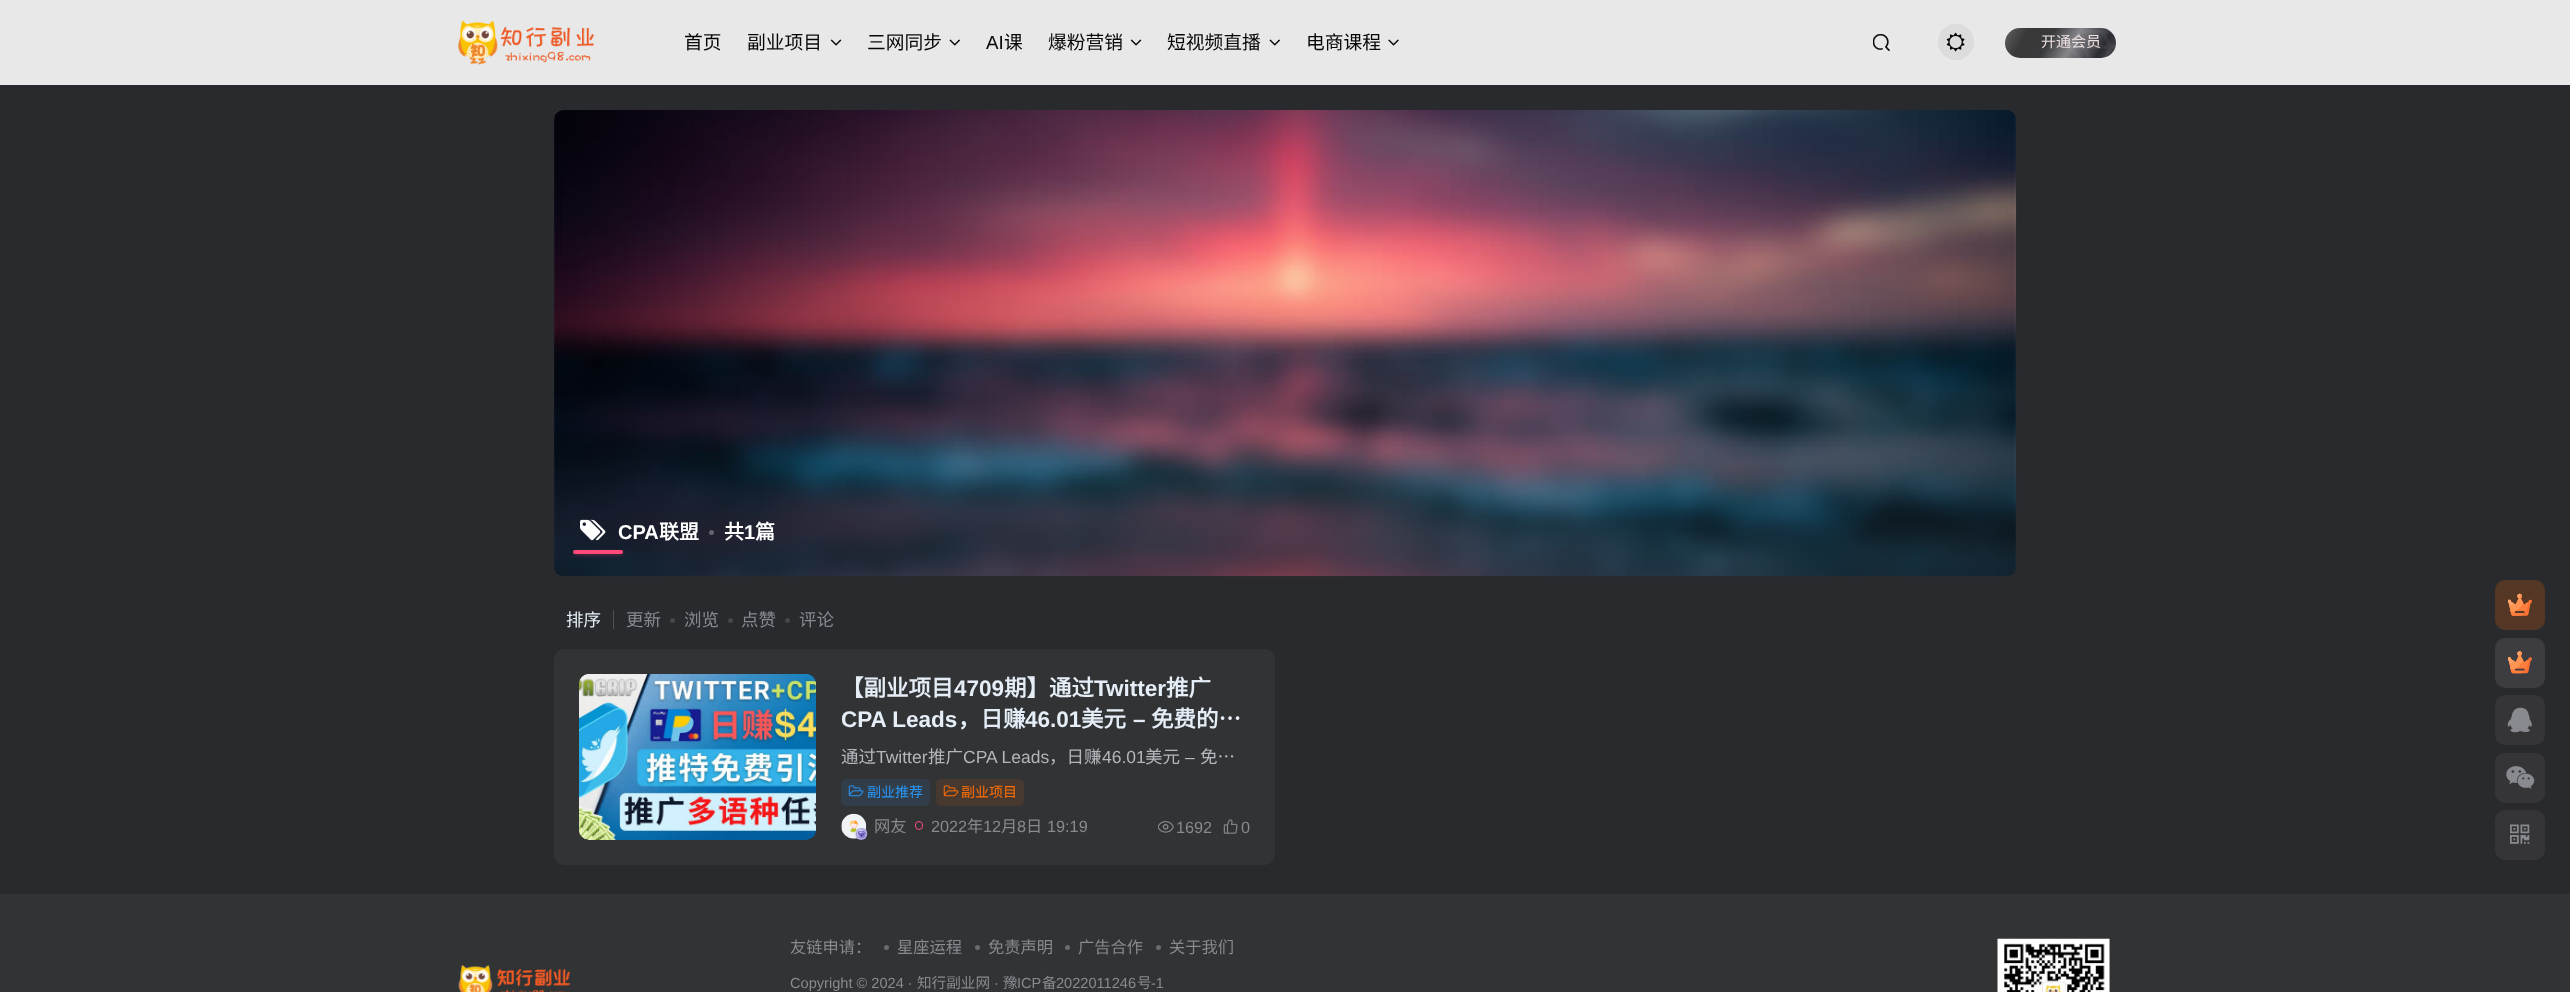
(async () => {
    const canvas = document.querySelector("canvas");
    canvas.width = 2570;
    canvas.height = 992;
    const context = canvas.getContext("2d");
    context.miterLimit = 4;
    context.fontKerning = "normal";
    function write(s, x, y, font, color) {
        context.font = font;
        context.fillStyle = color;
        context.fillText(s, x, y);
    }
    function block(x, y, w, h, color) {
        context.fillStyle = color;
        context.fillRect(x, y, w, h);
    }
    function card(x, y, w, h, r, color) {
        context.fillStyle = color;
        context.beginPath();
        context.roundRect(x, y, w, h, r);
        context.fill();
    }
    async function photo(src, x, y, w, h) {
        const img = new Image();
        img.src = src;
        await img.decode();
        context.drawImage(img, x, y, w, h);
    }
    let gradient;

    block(0, 0, 2570, 992, "rgb(41, 42, 45)");
    block(0, 0, 2570, 85, "rgb(232, 232, 232)");
    await photo("media/1.png", 457, 20, 138, 45);
    write("首页", 684, 49, "18.75px Noto Sans CJK SC", "rgb(7, 7, 7)");
    write("副业项目", 747, 49, "18.75px Noto Sans CJK SC", "rgb(7, 7, 7)");
    await photo("media/2.png", 830, 39, 12, 7);
    write("三网同步", 867, 49, "18.75px Noto Sans CJK SC", "rgb(7, 7, 7)");
    await photo("media/3.png", 949, 39, 11, 7);
    write("AI", 986, 49, "18.75px Liberation Sans", "rgb(7, 7, 7)");
    write("课", 1004, 49, "18.75px Noto Sans CJK SC", "rgb(7, 7, 7)");
    write("爆粉营销", 1048, 49, "18.75px Noto Sans CJK SC", "rgb(7, 7, 7)");
    await photo("media/2.png", 1130, 39, 12, 7);
    write("短视频直播", 1167, 49, "18.75px Noto Sans CJK SC", "rgb(7, 7, 7)");
    await photo("media/3.png", 1269, 39, 11, 7);
    write("电商课程", 1306, 49, "18.75px Noto Sans CJK SC", "rgb(7, 7, 7)");
    await photo("media/4.png", 1388, 39, 11, 7);
    block(1849, 33, 1, 21, "rgb(231, 233, 235)");
    await photo("media/5.png", 1873, 34, 17, 17);
    context.fillStyle = "rgb(220, 220, 220)";
    context.beginPath();
    context.arc(1956, 42, 18, 0, Math.PI * 2);
    context.fill();
    await photo("media/6.png", 1946, 32, 19, 20);
    gradient = context.createLinearGradient(2109, 70, 2012, 15);
    gradient.addColorStop(0, "rgb(76, 77, 81)");
    gradient.addColorStop(0.15, "rgb(42, 42, 49)");
    gradient.addColorStop(0.4, "rgb(133, 133, 138)");
    gradient.addColorStop(0.6, "rgb(57, 58, 60)");
    gradient.addColorStop(0.8, "rgb(57, 56, 56)");
    gradient.addColorStop(1, "rgb(94, 95, 98)");
    context.fillStyle = gradient;
    context.beginPath();
    context.roundRect(2005, 28, 111, 30, 15);
    context.fill();
    block(2020, 31, 1, 1, "rgb(81, 72, 69)");
    write("开通会员", 2041, 47, "15px Noto Sans CJK SC", "rgb(236, 224, 224)");
    await photo("media/7.png", 2068, 30, 48, 28);
    await photo("media/8.png", 554, 110, 1463, 467);
    gradient = context.createLinearGradient(1285, 576, 1285, 110);
    gradient.addColorStop(0.11, "rgba(29, 41, 49, 0.4)");
    gradient.addColorStop(0.3, "rgba(29, 41, 49, 0)");
    context.fillStyle = gradient;
    context.beginPath();
    context.roundRect(554, 110, 1462, 466, 10);
    context.fill();
    await photo("media/9.png", 580, 519, 26, 22);
    write("CPA", 618, 539, "bold 20px Liberation Sans", "rgb(255, 255, 255)");
    write("联盟", 659, 539, "bold 20px Noto Sans CJK SC", "rgb(255, 255, 255)");
    context.fillStyle = "rgb(99, 99, 110)";
    context.beginPath();
    context.arc(711.5, 532.5, 2.5, 0, Math.PI * 2);
    context.fill();
    write("共", 724, 539, "bold 20px Noto Sans CJK SC", "rgb(255, 255, 255)");
    write("1", 744, 539, "bold 20px Liberation Sans", "rgb(255, 255, 255)");
    write("篇", 755, 539, "bold 20px Noto Sans CJK SC", "rgb(255, 255, 255)");
    context.fillStyle = "rgb(255, 73, 122)";
    context.filter = "blur(2px)";
    context.beginPath();
    context.roundRect(575, 553, 48, 1, 0.5);
    context.fill();
    context.filter = "none";
    card(573, 550, 50, 4, 2, "rgb(255, 73, 122)");
    write("排序", 566, 626, "17.5px Noto Sans CJK SC", "rgb(229, 238, 247)");
    block(613, 610, 1, 19, "rgb(79, 81, 85)");
    write("更新", 626, 626, "17.5px Noto Sans CJK SC", "rgb(136, 138, 143)");
    context.fillStyle = "rgb(70, 71, 74)";
    context.beginPath();
    context.arc(672.5, 620.5, 2.5, 0, Math.PI * 2);
    context.fill();
    write("浏览", 684, 626, "17.5px Noto Sans CJK SC", "rgb(136, 138, 143)");
    context.fillStyle = "rgb(70, 71, 74)";
    context.beginPath();
    context.arc(730.5, 620.5, 2.5, 0, Math.PI * 2);
    context.fill();
    write("点赞", 741, 626, "17.5px Noto Sans CJK SC", "rgb(136, 138, 143)");
    context.fillStyle = "rgb(70, 71, 74)";
    context.beginPath();
    context.arc(787.5, 620.5, 2.5, 0, Math.PI * 2);
    context.fill();
    write("评论", 799, 626, "17.5px Noto Sans CJK SC", "rgb(136, 138, 143)");
    card(554, 649, 721, 216, 10, "rgb(50, 51, 53)");
    await photo("media/10.png", 579, 674, 237, 166);
    write("【副业项目", 841, 696, "bold 22.5px Noto Sans CJK SC", "rgb(229, 238, 247)");
    write("4709", 954, 696, "bold 22.5px Liberation Sans", "rgb(229, 238, 247)");
    write("期】通过", 1004, 696, "bold 22.5px Noto Sans CJK SC", "rgb(229, 238, 247)");
    write("Twitter", 1094, 696, "bold 22.5px Liberation Sans", "rgb(229, 238, 247)");
    write("推广", 1166, 696, "bold 22.5px Noto Sans CJK SC", "rgb(229, 238, 247)");
    write("CPA Leads", 841, 727, "bold 22.5px Liberation Sans", "rgb(229, 238, 247)");
    write("，日赚", 958, 727, "bold 22.5px Noto Sans CJK SC", "rgb(229, 238, 247)");
    write("46.01", 1025, 727, "bold 22.5px Liberation Sans", "rgb(229, 238, 247)");
    write("美元", 1081, 727, "bold 22.5px Noto Sans CJK SC", "rgb(229, 238, 247)");
    write("–", 1133, 727, "bold 22.5px Liberation Sans", "rgb(229, 238, 247)");
    write("免费的…", 1151, 727, "bold 22.5px Noto Sans CJK SC", "rgb(229, 238, 247)");
    write("通过", 841, 763, "17.5px Noto Sans CJK SC", "rgb(180, 182, 187)");
    write("Twitter", 876, 763, "17.5px Liberation Sans", "rgb(180, 182, 187)");
    write("推广", 928, 763, "17.5px Noto Sans CJK SC", "rgb(180, 182, 187)");
    write("CPA Leads", 963, 763, "17.5px Liberation Sans", "rgb(180, 182, 187)");
    write("，日赚", 1049, 763, "17.5px Noto Sans CJK SC", "rgb(180, 182, 187)");
    write("46.01", 1102, 763, "17.5px Liberation Sans", "rgb(180, 182, 187)");
    write("美元", 1145, 763, "17.5px Noto Sans CJK SC", "rgb(180, 182, 187)");
    write("–", 1185, 763, "17.5px Liberation Sans", "rgb(180, 182, 187)");
    write("免…", 1200, 763, "17.5px Noto Sans CJK SC", "rgb(180, 182, 187)");
    card(841, 779, 89, 27, 5, "rgb(49, 61, 72)");
    await photo("media/11.png", 848, 785, 16, 12);
    write("副业推荐", 867, 797, "14px Noto Sans CJK SC", "rgb(41, 151, 247)");
    card(936, 779, 88, 27, 5, "rgb(71, 57, 48)");
    await photo("media/12.png", 943, 785, 16, 12);
    write("副业项目", 961, 797, "14px Noto Sans CJK SC", "rgb(255, 111, 6)");
    await photo("media/13.png", 841, 813, 26, 26);
    await photo("media/14.png", 855, 828, 13, 12);
    write("网友", 874, 832, "16.25px Noto Sans CJK SC", "rgb(136, 138, 143)");
    context.beginPath();
    context.roundRect(915.5, 821.5, 7, 8, 3.5);
    context.strokeStyle = "rgb(255, 73, 122)";
    context.stroke();
    write("2022", 931, 832, "16.25px Liberation Sans", "rgb(136, 138, 143)");
    write("年", 967, 832, "16.25px Noto Sans CJK SC", "rgb(136, 138, 143)");
    write("12", 983, 832, "16.25px Liberation Sans", "rgb(136, 138, 143)");
    write("月", 1001, 832, "16.25px Noto Sans CJK SC", "rgb(136, 138, 143)");
    write("8", 1017, 832, "16.25px Liberation Sans", "rgb(136, 138, 143)");
    write("日", 1026, 832, "16.25px Noto Sans CJK SC", "rgb(136, 138, 143)");
    write("19:19", 1047, 832, "16.25px Liberation Sans", "rgb(136, 138, 143)");
    await photo("media/15.png", 1158, 821, 16, 12);
    write("1692", 1176, 833, "16.25px Liberation Sans", "rgb(136, 138, 143)");
    await photo("media/16.png", 1223, 819, 15, 15);
    write("0", 1241, 833, "16.25px Liberation Sans", "rgb(136, 138, 143)");
    card(2495, 580, 50, 50, 10, "rgb(84, 56, 37)");
    await photo("media/17.png", 2508, 593, 24, 23);
    card(2495, 638, 50, 50, 10, "rgb(60, 60, 65)");
    await photo("media/18.png", 2508, 651, 24, 23);
    card(2495, 695, 50, 50, 10, "rgb(53, 53, 55)");
    await photo("media/19.png", 2507, 707, 25, 26);
    card(2495, 753, 50, 50, 10, "rgb(53, 53, 55)");
    await photo("media/20.png", 2506, 766, 29, 23);
    card(2495, 810, 50, 50, 10, "rgb(53, 53, 55)");
    await photo("media/21.png", 2510, 824, 20, 20);
    block(0, 894, 2570, 98, "rgb(50, 51, 53)");
    await photo("media/22.png", 458, 964, 113, 28);
    write("友链申请：", 790, 953, "16.25px Noto Sans CJK SC", "rgb(136, 138, 143)");
    context.fillStyle = "rgb(104, 107, 111)";
    context.beginPath();
    context.arc(886.5, 947.5, 2.5, 0, Math.PI * 2);
    context.fill();
    write("星座运程", 897, 953, "16.25px Noto Sans CJK SC", "rgb(136, 138, 143)");
    context.fillStyle = "rgb(104, 107, 111)";
    context.beginPath();
    context.arc(977.5, 947.5, 2.5, 0, Math.PI * 2);
    context.fill();
    write("免责声明", 988, 953, "16.25px Noto Sans CJK SC", "rgb(136, 138, 143)");
    context.fillStyle = "rgb(104, 107, 111)";
    context.beginPath();
    context.arc(1067.5, 947.5, 2.5, 0, Math.PI * 2);
    context.fill();
    write("广告合作", 1078, 953, "16.25px Noto Sans CJK SC", "rgb(136, 138, 143)");
    context.fillStyle = "rgb(104, 107, 111)";
    context.beginPath();
    context.arc(1158.5, 947.5, 2.5, 0, Math.PI * 2);
    context.fill();
    write("关于我们", 1169, 953, "16.25px Noto Sans CJK SC", "rgb(136, 138, 143)");
    write("Copyright © 2024 ·", 790, 988, "14.6px Liberation Sans", "rgb(136, 138, 143)");
    write("知行副业网", 917, 988, "14.6px Noto Sans CJK SC", "rgb(136, 138, 143)");
    write("·", 994, 988, "14.6px Liberation Sans", "rgb(136, 138, 143)");
    write("豫", 1003, 988, "14.6px Noto Sans CJK SC", "rgb(136, 138, 143)");
    write("ICP", 1017, 988, "14.6px Liberation Sans", "rgb(136, 138, 143)");
    write("备", 1042, 988, "14.6px Noto Sans CJK SC", "rgb(136, 138, 143)");
    write("2022011246", 1056, 988, "14.6px Liberation Sans", "rgb(136, 138, 143)");
    write("号", 1137, 988, "14.6px Noto Sans CJK SC", "rgb(136, 138, 143)");
    write("-1", 1151, 988, "14.6px Liberation Sans", "rgb(136, 138, 143)");
    await photo("media/23.png", 1997, 938, 113, 54);
})();
